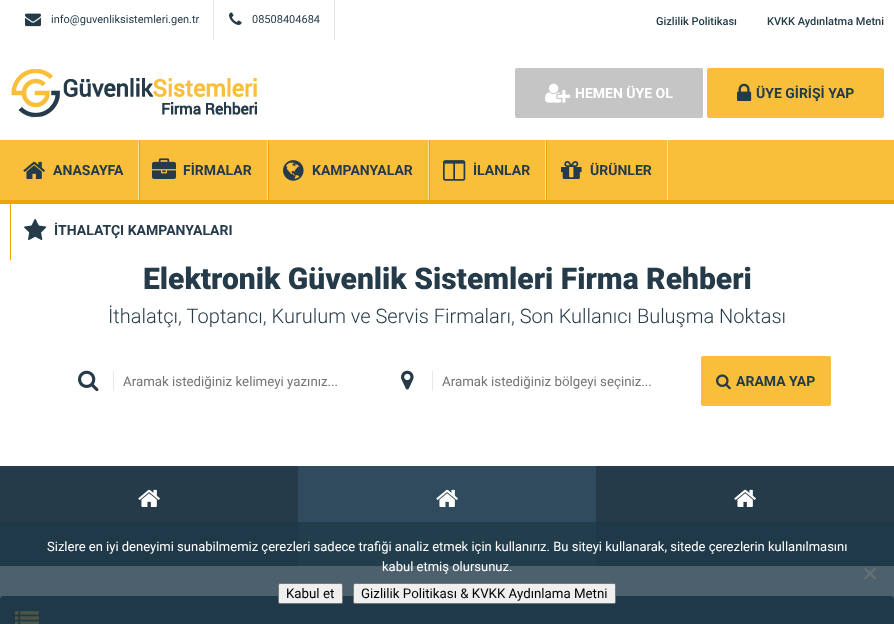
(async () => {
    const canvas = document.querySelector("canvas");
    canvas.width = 894;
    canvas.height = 624;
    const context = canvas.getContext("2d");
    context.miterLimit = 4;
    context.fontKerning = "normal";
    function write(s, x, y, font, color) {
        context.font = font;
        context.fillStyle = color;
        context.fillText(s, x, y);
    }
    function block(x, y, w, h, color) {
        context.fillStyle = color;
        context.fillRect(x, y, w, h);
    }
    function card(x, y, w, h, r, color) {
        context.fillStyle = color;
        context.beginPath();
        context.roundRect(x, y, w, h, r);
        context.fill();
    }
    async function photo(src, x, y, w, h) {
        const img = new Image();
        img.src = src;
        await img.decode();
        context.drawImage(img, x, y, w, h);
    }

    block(0, 0, 894, 624, "rgb(255, 255, 255)");
    block(213, 0, 1, 40, "rgb(230, 230, 230)");
    await photo("media/1.png", 25, 13, 16, 14);
    write("info@guvenliksistemleri.gen.tr", 51, 23, "11px Roboto", "rgb(37, 59, 73)");
    block(334, 0, 1, 40, "rgb(230, 230, 230)");
    await photo("media/2.png", 229, 12, 13, 13);
    write("08508404684", 252, 23, "11px Roboto", "rgb(37, 59, 73)");
    write("Gizlilik Politikası", 656, 25, "500 11px Roboto", "rgb(37, 59, 73)");
    write("KVKK Aydınlatma Metni", 767, 25, "500 11px Roboto", "rgb(37, 59, 73)");
    await photo("media/3.png", 11, 68, 246, 50);
    card(515, 68, 188, 50, 2, "rgb(197, 197, 197)");
    await photo("media/4.png", 545, 83, 26, 20);
    write("HEMEN ÜYE OL", 575, 98, "bold 14px Roboto", "rgb(255, 255, 255)");
    card(707, 68, 177, 50, 2, "rgb(249, 191, 59)");
    await photo("media/5.png", 737, 83, 15, 18);
    write("ÜYE GİRİŞİ YAP", 756, 98, "bold 14px Roboto", "rgb(37, 59, 73)");
    block(0, 140, 894, 60, "rgb(249, 191, 59)");
    block(0, 200, 894, 4, "rgb(235, 165, 7)");
    block(138, 140, 1, 60, "rgb(252, 223, 158)");
    await photo("media/6.png", 23, 161, 22, 18);
    write("ANASAYFA", 53, 175, "bold 14px Roboto", "rgb(37, 59, 73)");
    block(267, 140, 1, 60, "rgb(252, 223, 158)");
    block(139, 140, 1, 60, "rgb(235, 165, 7)");
    await photo("media/7.png", 152, 158, 24, 21);
    write("FİRMALAR", 183, 175, "bold 14px Roboto", "rgb(37, 59, 73)");
    block(428, 140, 1, 60, "rgb(252, 223, 158)");
    block(268, 140, 1, 60, "rgb(235, 165, 7)");
    await photo("media/8.png", 283, 160, 21, 21);
    write("KAMPANYALAR", 312, 175, "bold 14px Roboto", "rgb(37, 59, 73)");
    block(545, 140, 1, 60, "rgb(252, 223, 158)");
    block(429, 140, 1, 60, "rgb(235, 165, 7)");
    await photo("media/9.png", 443, 160, 23, 21);
    write("İLANLAR", 473, 175, "bold 14px Roboto", "rgb(37, 59, 73)");
    block(667, 140, 1, 60, "rgb(252, 223, 158)");
    block(546, 140, 1, 60, "rgb(235, 165, 7)");
    await photo("media/10.png", 561, 161, 21, 18);
    write("ÜRÜNLER", 590, 175, "bold 14px Roboto", "rgb(37, 59, 73)");
    block(10, 200, 1, 60, "rgb(235, 165, 7)");
    await photo("media/11.png", 24, 218, 23, 23);
    write("İTHALATÇI KAMPANYALARI", 54, 235, "bold 14px Roboto", "rgb(37, 59, 73)");
    write("Elektronik Güvenlik Sistemleri Firma Rehberi", 143, 289, "900 30px Roboto", "rgb(37, 59, 73)");
    write("İthalatçı, Toptancı, Kurulum ve Servis Firmaları, Son Kullanıcı Buluşma Noktası", 108, 323, "300 20px Roboto", "rgb(37, 59, 73)");
    block(113, 371, 1, 20, "rgb(232, 232, 232)");
    await photo("media/12.png", 78, 370, 21, 22);
    write("Aramak istediğiniz kelimeyi yazınız...", 123, 386, "13.3px Roboto", "rgb(117, 117, 117)");
    block(432, 371, 1, 20, "rgb(232, 232, 232)");
    await photo("media/13.png", 401, 370, 13, 20);
    write("Aramak istediğiniz bölgeyi seçiniz...", 442, 386, "13.3px Roboto", "rgb(117, 117, 117)");
    card(701, 356, 130, 50, 2, "rgb(249, 191, 59)");
    await photo("media/14.png", 716, 374, 15, 16);
    write("ARAMA YAP", 736, 386, "bold 14px Roboto", "rgb(37, 59, 73)");
    block(0, 466, 298, 100, "rgb(37, 59, 73)");
    await photo("media/15.png", 138, 489, 22, 18);
    block(298, 466, 298, 100, "rgb(47, 75, 93)");
    await photo("media/16.png", 436, 489, 22, 18);
    block(596, 466, 298, 100, "rgb(37, 59, 73)");
    await photo("media/15.png", 734, 489, 22, 18);
    context.beginPath();
    context.moveTo(3, 596);
    context.lineTo(891, 596);
    context.bezierCurveTo(892.5, 596, 894, 597.5, 894, 599);
    context.lineTo(894, 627);
    context.lineTo(0, 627);
    context.lineTo(0, 599);
    context.bezierCurveTo(0, 597.5, 1.5, 596, 3, 596);
    context.closePath();
    context.fill();
    await photo("media/17.png", 15, 611, 24, 13);
    block(0, 522, 894, 102, "rgba(31, 57, 73, 0.8)");
    write("Sizlere en iyi deneyimi sunabilmemiz çerezleri sadece trafiği analiz etmek için kullanırız. Bu siteyi kullanarak, sitede çerezlerin kullanılmasını", 47, 551, "13px Roboto", "rgb(255, 255, 255)");
    write("kabul etmiş olursunuz.", 382, 571, "13px Roboto", "rgb(255, 255, 255)");
    context.fillStyle = "rgb(102, 112, 119)";
    context.beginPath();
    context.moveTo(874.5, 567.5);
    context.lineTo(876, 569);
    context.lineTo(865.5, 579.5);
    context.lineTo(864, 578);
    context.closePath();
    context.fill();
    context.beginPath();
    context.moveTo(864, 569);
    context.lineTo(865.5, 567.5);
    context.lineTo(876, 578);
    context.lineTo(874.5, 579.5);
    context.closePath();
    context.fill();
    context.fillStyle = "rgb(239, 239, 239)";
    context.beginPath();
    context.roundRect(278.5, 583.5, 64, 20, 1.5);
    context.fill();
    context.strokeStyle = "rgb(118, 118, 118)";
    context.stroke();
    write("Kabul et", 286, 598, "13.3px Roboto", "rgb(0, 0, 0)");
    context.fillStyle = "rgb(239, 239, 239)";
    context.beginPath();
    context.roundRect(353.5, 583.5, 262, 20, 1.5);
    context.fill();
    context.stroke();
    write("Gizlilik Politikası & KVKK Aydınlama Metni", 361, 598, "13.3px Roboto", "rgb(0, 0, 0)");
})();
